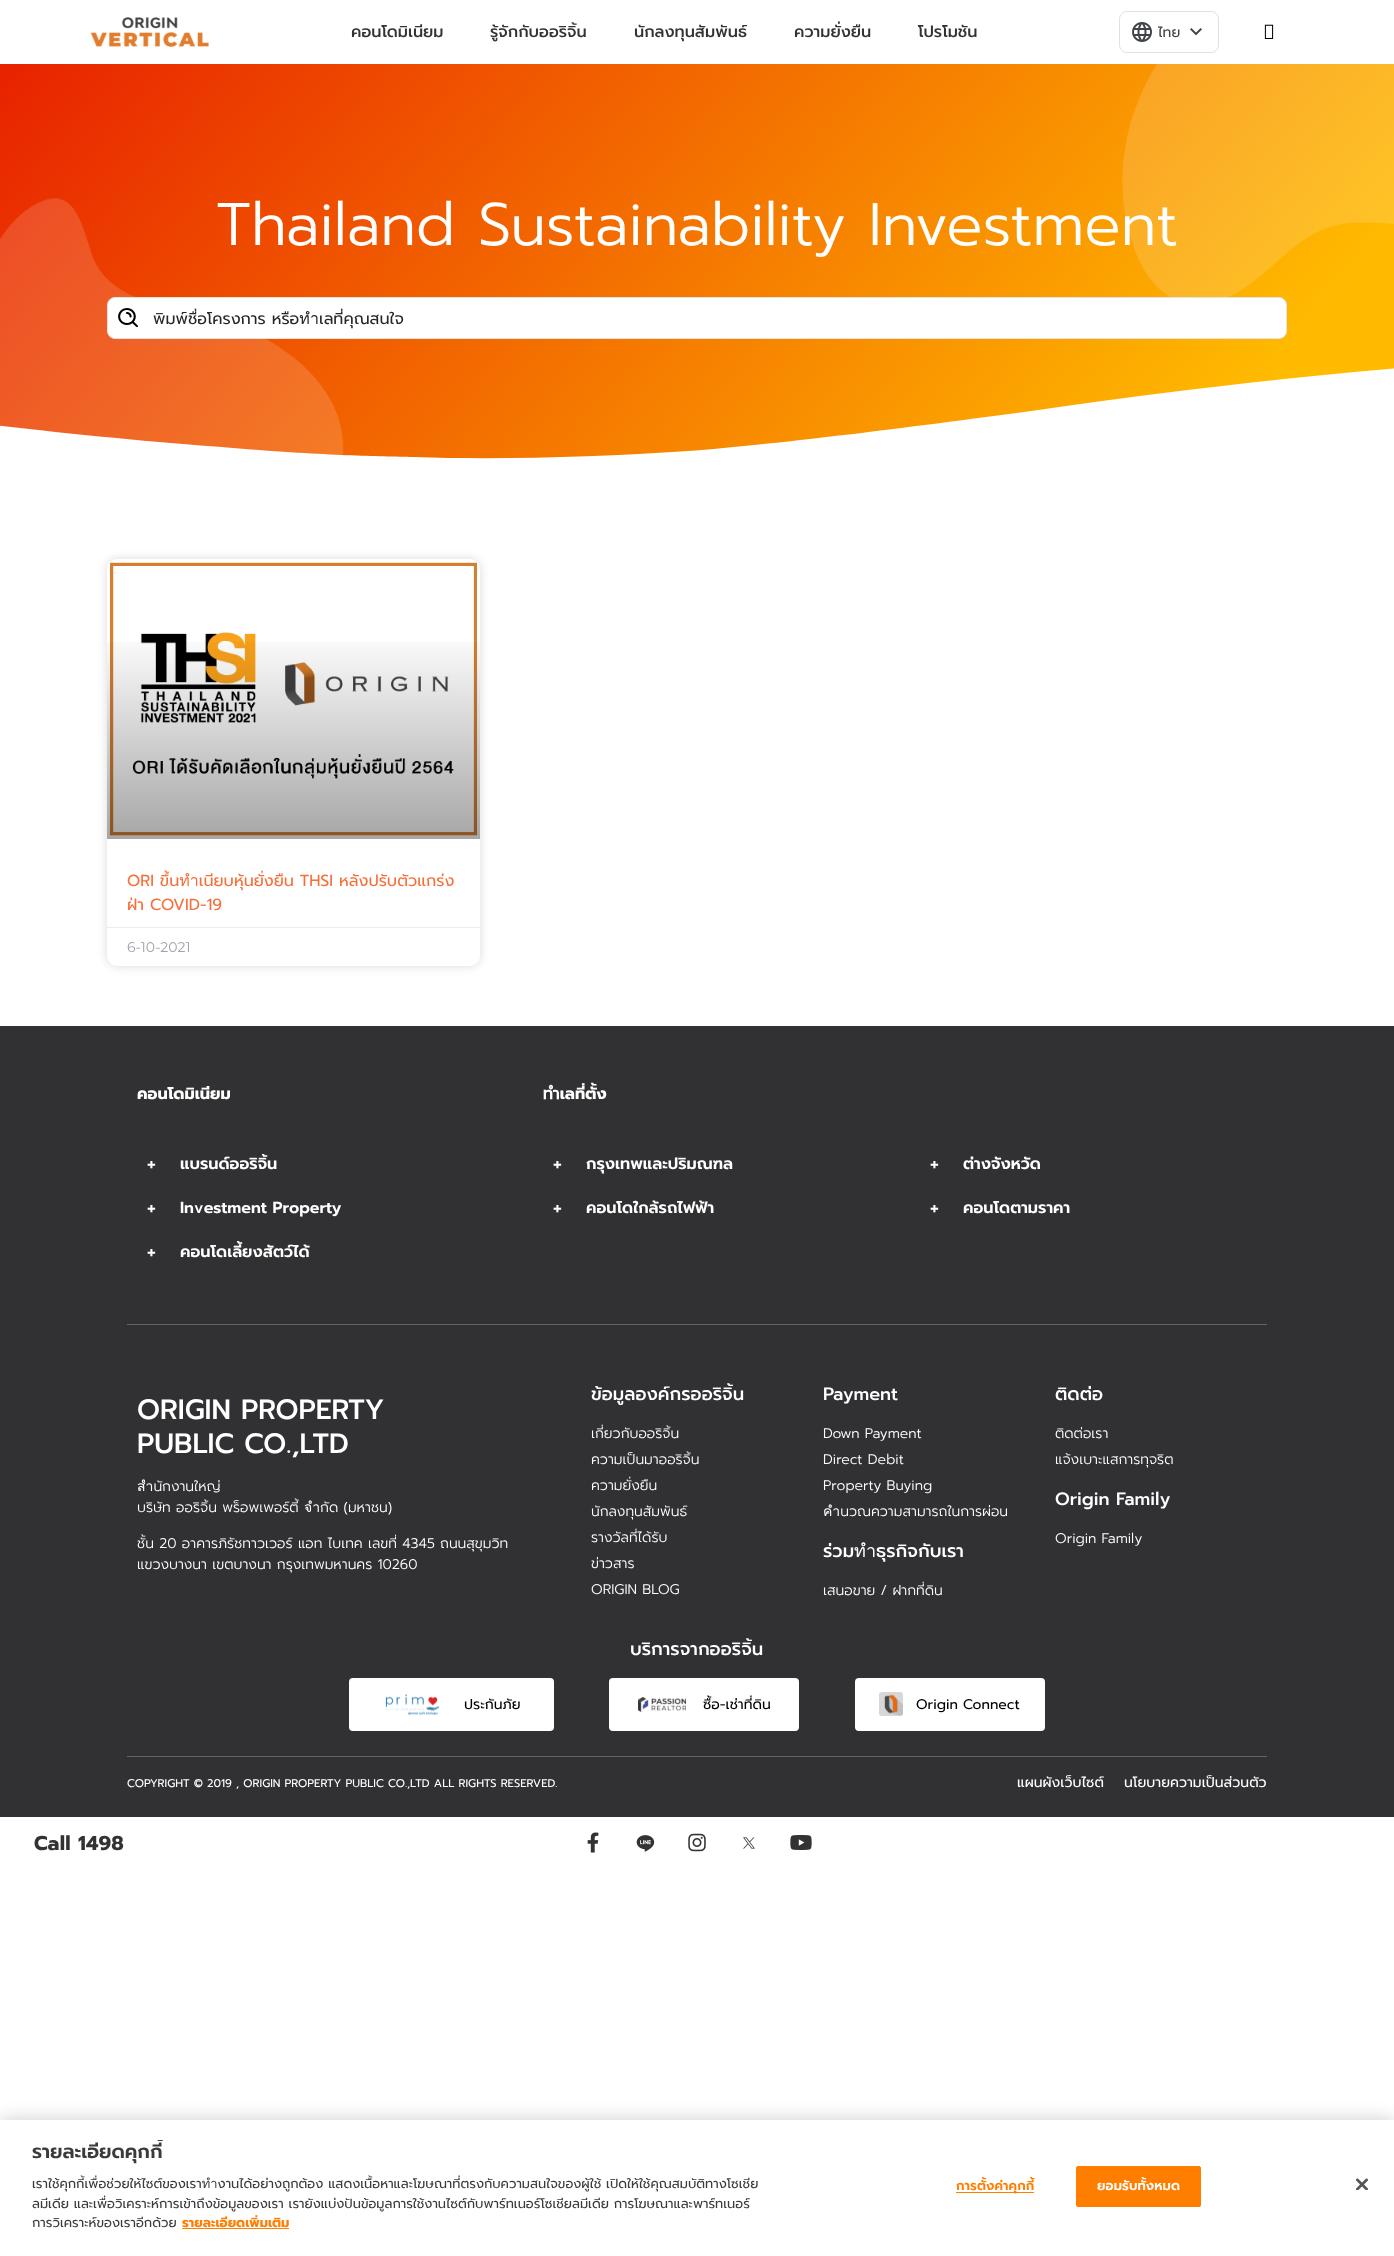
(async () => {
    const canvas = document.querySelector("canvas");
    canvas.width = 1394;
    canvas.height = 2256;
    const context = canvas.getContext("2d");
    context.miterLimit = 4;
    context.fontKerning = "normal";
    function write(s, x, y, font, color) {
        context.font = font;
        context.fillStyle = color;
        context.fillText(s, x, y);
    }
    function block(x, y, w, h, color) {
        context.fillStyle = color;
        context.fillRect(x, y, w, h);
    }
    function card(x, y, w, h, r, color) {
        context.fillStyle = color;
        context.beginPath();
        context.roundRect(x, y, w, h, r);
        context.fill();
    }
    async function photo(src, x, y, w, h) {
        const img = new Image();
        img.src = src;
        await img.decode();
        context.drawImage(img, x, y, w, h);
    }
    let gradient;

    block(0, 0, 1394, 2256, "rgb(255, 255, 255)");
    await photo("media/1.png", 90, 17, 119, 31);
    write("คอนโดมิเนียม", 351, 37, "500 16px Prompt", "rgb(51, 51, 51)");
    write("รู้จักกับออริจิ้น", 490, 37, "500 16px Prompt", "rgb(51, 51, 51)");
    write("นักลงทุนสัมพันธ์", 634, 37, "500 16px Prompt", "rgb(51, 51, 51)");
    write("ความยั่งยืน", 794, 37, "500 16px Prompt", "rgb(51, 51, 51)");
    write("โปรโมชัน", 918, 37, "500 16px Prompt", "rgb(51, 51, 51)");
    context.beginPath();
    context.roundRect(1119.5, 11.5, 99, 41, 7.5);
    context.strokeStyle = "rgb(224, 224, 224)";
    context.stroke();
    await photo("media/2.png", 1132, 22, 20, 20);
    write("ไทย", 1158, 37, "14px Prompt", "rgb(64, 67, 73)");
    await photo("media/3.png", 1190, 28, 12, 8);
    await photo("media/4.png", 1264, 24, 10, 15);
    gradient = context.createLinearGradient(190, -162, 1204, 690);
    gradient.addColorStop(0, "rgb(232, 34, 0)");
    gradient.addColorStop(0.89, "rgb(255, 187, 0)");
    context.fillStyle = gradient;
    context.fillRect(0, 64, 1394, 395);
    await photo("media/5.png", 0, 64, 1394, 391);
    write("Thailand Sustainability Investment", 216, 245, "300 60px Prompt", "rgb(255, 255, 255)");
    context.beginPath();
    context.roundRect(107.5, 297.5, 1179, 41, 7.5);
    context.fill();
    context.strokeStyle = "rgb(228, 228, 228)";
    context.stroke();
    await photo("media/6.png", 118, 308, 20, 20);
    context.save();
    context.beginPath();
    context.rect(153, 307, 1118, 24);
    context.clip();
    write("พิมพ์ชื่อโครงการ หรือทำเลที่คุณสนใจ", 153, 324, "16px Prompt", "rgb(38, 38, 38)");
    context.restore();
    context.beginPath();
    context.moveTo(414, 457);
    context.bezierCurveTo(496, 460, 601, 457, 688, 451);
    context.bezierCurveTo(773, 445, 945, 423, 1052, 408);
    context.bezierCurveTo(1327, 369, 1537, 355, 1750, 348);
    context.bezierCurveTo(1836, 346, 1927, 344, 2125, 351);
    context.bezierCurveTo(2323, 359, 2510, 382, 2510, 382);
    context.lineTo(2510, 465);
    context.lineTo(-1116, 465);
    context.lineTo(-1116, 429);
    context.bezierCurveTo(-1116, 429, -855, 390, -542, 392);
    context.bezierCurveTo(-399, 393, -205, 400, -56, 419);
    context.bezierCurveTo(21, 429, 134, 441, 233, 448);
    context.bezierCurveTo(332, 456, 376, 456, 414, 457);
    context.closePath();
    context.fill();
    context.fillStyle = "rgba(0, 0, 0, 0.15)";
    context.filter = "blur(5px)";
    context.beginPath();
    context.roundRect(107, 559, 373, 407, 10);
    context.fill();
    context.filter = "none";
    card(107, 559, 373, 407, 10, "rgb(255, 255, 255)");
    await photo("media/7.png", 109, 562, 369, 274);
    gradient = context.createLinearGradient(294, 839, 294, 559);
    gradient.addColorStop(0, "rgba(0, 0, 0, 0.35)");
    gradient.addColorStop(0.75, "rgba(0, 0, 0, 0)");
    context.fillStyle = gradient;
    context.fillRect(107, 642, 373, 197);
    write("ORI ขึ้นทำเนียบหุ้นยั่งยืน THSI หลังปรับตัวแกร่ง", 127, 886, "16px Prompt", "rgb(247, 110, 56)");
    write("ฝ่า COVID-19", 127, 910, "16px Prompt", "rgb(247, 110, 56)");
    block(107, 927, 373, 1, "rgb(236, 236, 238)");
    write("6-10-2021", 127, 952, "14px Montserrat", "rgb(158, 162, 172)");
    block(0, 1026, 1394, 791, "rgb(49, 49, 51)");
    block(127, 1324, 1140, 1, "rgb(99, 99, 99)");
    write("คอนโดมิเนียม", 137, 1099, "bold 16px Prompt", "rgb(255, 255, 255)");
    write("+", 147, 1170, "900 15px Noto Sans", "rgb(255, 255, 255)");
    write("แบรนด์ออริจิ้น", 180, 1169, "600 16px Prompt", "rgb(255, 255, 255)");
    write("+", 147, 1214, "900 15px Noto Sans", "rgb(255, 255, 255)");
    write("Investment Property", 180, 1213, "600 16px Prompt", "rgb(255, 255, 255)");
    write("+", 147, 1258, "900 15px Noto Sans", "rgb(255, 255, 255)");
    write("คอนโดเลี้ยงสัตว์ได้", 180, 1257, "600 16px Prompt", "rgb(255, 255, 255)");
    write("ทำเลที่ตั้ง", 543, 1099, "bold 16px Prompt", "rgb(255, 255, 255)");
    write("+", 553, 1170, "900 15px Noto Sans", "rgb(255, 255, 255)");
    write("กรุงเทพและปริมณฑล", 586, 1169, "600 16px Prompt", "rgb(255, 255, 255)");
    write("+", 553, 1214, "900 15px Noto Sans", "rgb(255, 255, 255)");
    write("คอนโดใกล้รถไฟฟ้า", 586, 1213, "600 16px Prompt", "rgb(255, 255, 255)");
    write("+", 930, 1170, "900 15px Noto Sans", "rgb(255, 255, 255)");
    write("ต่างจังหวัด", 963, 1169, "600 16px Prompt", "rgb(255, 255, 255)");
    write("+", 930, 1214, "900 15px Noto Sans", "rgb(255, 255, 255)");
    write("คอนโดตามราคา", 963, 1213, "600 16px Prompt", "rgb(255, 255, 255)");
    write("ORIGIN PROPERTY", 137, 1419, "500 28px Prompt", "rgb(255, 255, 255)");
    write("PUBLIC CO.,LTD", 137, 1453, "500 28px Prompt", "rgb(255, 255, 255)");
    write("สำนักงานใหญ่", 137, 1491, "300 14px Prompt", "rgb(255, 255, 255)");
    write("บริษัท ออริจิ้น พร็อพเพอร์ตี้ จำกัด (มหาชน)", 137, 1512, "300 14px Prompt", "rgb(255, 255, 255)");
    write("ชั้น 20 อาคารภิรัชทาวเวอร์ แอท ไบเทค เลขที่ 4345 ถนนสุขุมวิท", 137, 1548, "300 14px Prompt", "rgb(255, 255, 255)");
    write("แขวงบางนา เขตบางนา กรุงเทพมหานคร 10260", 137, 1569, "300 14px Prompt", "rgb(255, 255, 255)");
    write("ข้อมูลองค์กรออริจิ้น", 591, 1400, "500 18px Prompt", "rgb(255, 255, 255)");
    write("เกี่ยวกับออริจิ้น", 591, 1438, "300 14px Prompt", "rgb(255, 255, 255)");
    write("ความเป็นมาออริจิ้น", 591, 1464, "300 14px Prompt", "rgb(255, 255, 255)");
    write("ความยั่งยืน", 591, 1490, "300 14px Prompt", "rgb(255, 255, 255)");
    write("นักลงทุนสัมพันธ์", 591, 1516, "300 14px Prompt", "rgb(255, 255, 255)");
    write("รางวัลที่ได้รับ", 591, 1542, "300 14px Prompt", "rgb(255, 255, 255)");
    write("ข่าวสาร", 591, 1568, "300 14px Prompt", "rgb(255, 255, 255)");
    write("ORIGIN BLOG", 591, 1594, "300 14px Prompt", "rgb(255, 255, 255)");
    write("Payment", 823, 1400, "500 18px Prompt", "rgb(255, 255, 255)");
    write("Down Payment", 823, 1438, "300 14px Prompt", "rgb(255, 255, 255)");
    write("Direct Debit", 823, 1464, "300 14px Prompt", "rgb(255, 255, 255)");
    write("Property Buying", 823, 1490, "300 14px Prompt", "rgb(255, 255, 255)");
    write("คำนวณความสามารถในการผ่อน", 823, 1516, "300 14px Prompt", "rgb(255, 255, 255)");
    write("ร่วมทำธุรกิจกับเรา", 823, 1557, "500 18px Prompt", "rgb(255, 255, 255)");
    write("เสนอขาย / ฝากที่ดิน", 823, 1595, "300 14px Prompt", "rgb(255, 255, 255)");
    write("ติดต่อ", 1055, 1400, "500 18px Prompt", "rgb(255, 255, 255)");
    write("ติดต่อเรา", 1055, 1438, "300 14px Prompt", "rgb(255, 255, 255)");
    write("แจ้งเบาะแสการทุจริต", 1055, 1464, "300 14px Prompt", "rgb(255, 255, 255)");
    write("Origin Family", 1055, 1505, "500 18px Prompt", "rgb(255, 255, 255)");
    write("Origin Family", 1055, 1543, "300 14px Prompt", "rgb(255, 255, 255)");
    write("บริการจากออริจิ้น", 630, 1655, "500 18px Prompt", "rgb(255, 255, 255)");
    card(349, 1678, 205, 53, 4, "rgb(255, 255, 255)");
    await photo("media/8.png", 385, 1694, 55, 22);
    write("ประกันภัย", 464, 1709, "14px Prompt", "rgb(0, 0, 0)");
    card(609, 1678, 190, 53, 4, "rgb(255, 255, 255)");
    await photo("media/9.png", 638, 1697, 48, 15);
    write("ซื้อ-เช่าที่ดิน", 703, 1709, "14px Prompt", "rgb(0, 0, 0)");
    card(855, 1678, 190, 53, 4, "rgb(255, 255, 255)");
    await photo("media/10.png", 879, 1692, 24, 24);
    write("Origin Connect", 916, 1709, "14px Prompt", "rgb(0, 0, 0)");
    block(127, 1756, 1140, 1, "rgb(99, 99, 99)");
    write("COPYRIGHT © 2019 , ORIGIN PROPERTY PUBLIC CO.,LTD ALL RIGHTS RESERVED.", 127, 1787, "11.2px Prompt", "rgb(255, 255, 255)");
    write("แผนผังเว็บไซต์", 1017, 1787, "14px Prompt", "rgb(255, 255, 255)");
    write("นโยบายความเป็นส่วนตัว", 1124, 1787, "14px Prompt", "rgb(255, 255, 255)");
    context.letterSpacing = "0.25px";
    write("Call 1498", 34, 1850, "bold 20px Prompt", "rgb(51, 51, 51)");
    await photo("media/11.png", 587, 1832, 12, 21);
    await photo("media/12.png", 636, 1835, 19, 17);
    await photo("media/13.png", 688, 1833, 18, 19);
    await photo("media/14.png", 743, 1837, 12, 12);
    await photo("media/15.png", 790, 1835, 22, 15);
    context.fillStyle = "rgba(0, 0, 0, 0.2)";
    context.filter = "blur(9px)";
    context.beginPath();
    context.rect(0, 2120, 1394, 136);
    context.fill();
    context.filter = "none";
    block(0, 2120, 1394, 136, "rgb(255, 255, 255)");
    context.save();
    context.beginPath();
    context.rect(32, 2140, 735, 106);
    context.clip();
    context.letterSpacing = "0px";
    write("รายละเอียดคุกกี้", 32, 2158, "600 19.25px Prompt", "rgb(59, 59, 59)");
    context.restore();
    context.letterSpacing = "0px";
    write("เราใช้คุกกี้เพื่อช่วยให้ไซต์ของเราทำงานได้อย่างถูกต้อง แสดงเนื้อหาและโฆษณาที่ตรงกับความสนใจของผู้ใช้ เปิดให้ใช้คุณสมบัติทางโซเชีย", 32, 2188, "13px Prompt", "rgb(59, 59, 59)");
    write("ลมีเดีย และเพื่อวิเคราะห์การเข้าถึงข้อมูลของเรา เรายังแบ่งปันข้อมูลการใช้งานไซต์กับพาร์ทเนอร์โซเชียลมีเดีย การโฆษณาและพาร์ทเนอร์", 32, 2208, "13px Prompt", "rgb(59, 59, 59)");
    write("การวิเคราะห์ของเราอีกด้วย", 32, 2227, "13px Prompt", "rgb(59, 59, 59)");
    write("รายละเอียดเพิ่มเติม", 182, 2227, "bold 13px Prompt", "rgb(255, 126, 0)");
    block(182, 2228, 107, 1, "rgb(255, 126, 0)");
    block(956, 2192, 78, 1, "rgb(255, 126, 0)");
    context.letterSpacing = "0.1px";
    write("การตั้งค่าคุกกี้", 956, 2190, "600 13px Prompt", "rgb(255, 126, 0)");
    context.beginPath();
    context.roundRect(1076.5, 2166.5, 124, 40, 1.5);
    context.fill();
    context.strokeStyle = "rgb(255, 126, 0)";
    context.stroke();
    write("ยอมรับทั้งหมด", 1097, 2190, "600 13px Prompt", "rgb(255, 255, 255)");
    await photo("media/16.png", 1356, 2178, 12, 12);
})();
